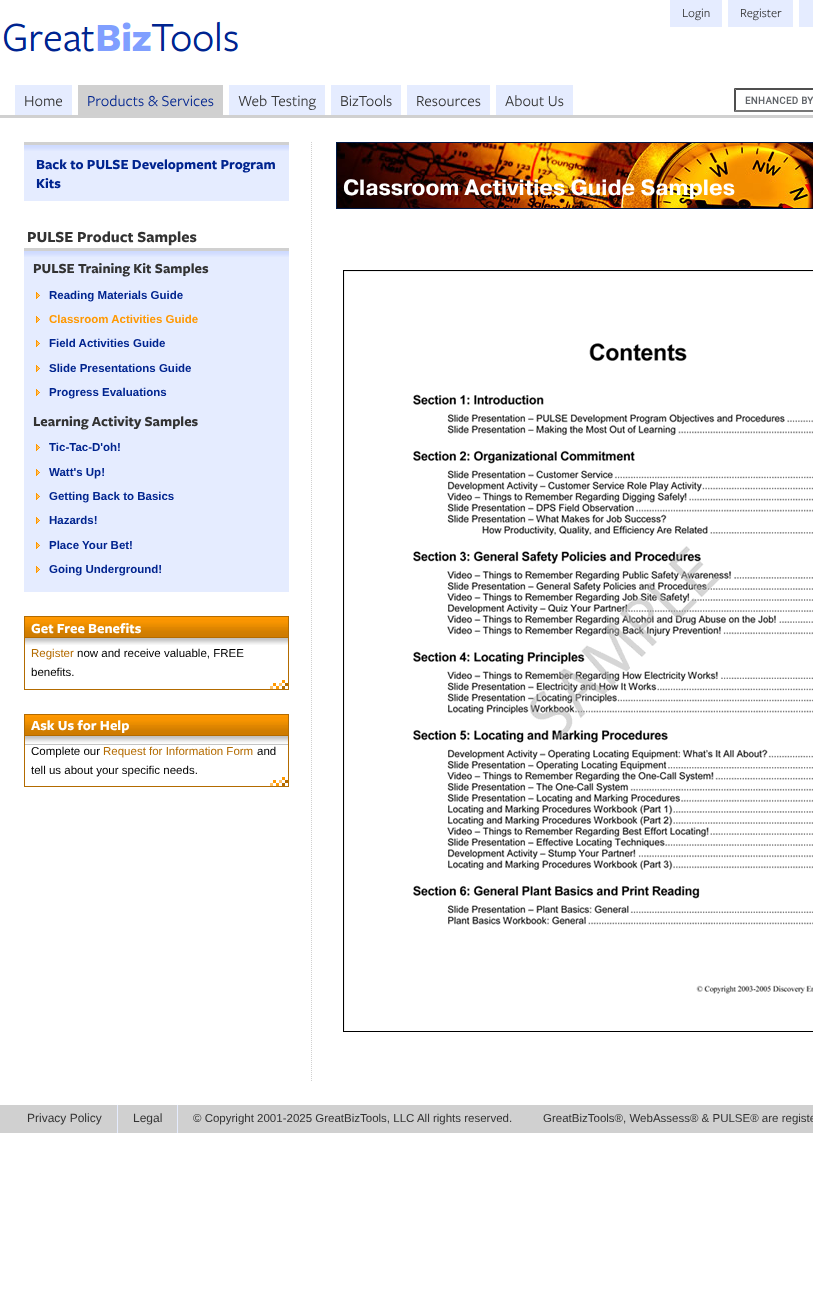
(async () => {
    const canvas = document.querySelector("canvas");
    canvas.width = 813;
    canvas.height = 1305;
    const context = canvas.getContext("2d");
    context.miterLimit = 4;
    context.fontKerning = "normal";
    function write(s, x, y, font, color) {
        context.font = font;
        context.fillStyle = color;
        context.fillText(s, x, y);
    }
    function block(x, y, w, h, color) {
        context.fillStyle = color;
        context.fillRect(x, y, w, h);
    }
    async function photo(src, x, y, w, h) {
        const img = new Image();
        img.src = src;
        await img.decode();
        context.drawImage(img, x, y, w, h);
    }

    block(0, 0, 813, 1305, "rgb(255, 255, 255)");
    block(0, 115, 813, 3, "rgb(208, 208, 208)");
    block(670, 0, 52, 27, "rgb(229, 236, 255)");
    write("Login", 682, 17, "13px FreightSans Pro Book", "rgb(51, 51, 51)");
    block(728, 0, 65, 27, "rgb(229, 236, 255)");
    write("Register", 740, 17, "13px FreightSans Pro Book", "rgb(51, 51, 51)");
    block(799, 0, 14, 27, "rgb(229, 236, 255)");
    await photo("media/1.png", 3, 21, 236, 31);
    block(15, 85, 57, 30, "rgb(229, 236, 255)");
    write("Home", 24, 106, "16px FreightSans Pro Book", "rgb(51, 51, 51)");
    block(78, 85, 145, 30, "rgb(208, 208, 208)");
    write("Products & Services", 87, 106, "16px FreightSans Pro Book", "rgb(0, 36, 143)");
    block(229, 85, 96, 30, "rgb(229, 236, 255)");
    write("Web Testing", 238, 106, "16px FreightSans Pro Book", "rgb(51, 51, 51)");
    block(331, 85, 70, 30, "rgb(229, 236, 255)");
    write("BizTools", 340, 106, "16px FreightSans Pro Book", "rgb(51, 51, 51)");
    block(407, 85, 83, 30, "rgb(229, 236, 255)");
    write("Resources", 416, 106, "16px FreightSans Pro Book", "rgb(51, 51, 51)");
    block(496, 85, 77, 30, "rgb(229, 236, 255)");
    write("About Us", 505, 106, "16px FreightSans Pro Book", "rgb(51, 51, 51)");
    await photo("media/2.png", 745, 96, 68, 8);
    context.fillStyle = "rgb(79, 79, 79)";
    context.beginPath();
    context.moveTo(734, 88);
    context.lineTo(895, 88);
    context.lineTo(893, 90);
    context.lineTo(736, 90);
    context.closePath();
    context.fill();
    context.fillStyle = "rgb(118, 118, 118)";
    context.beginPath();
    context.moveTo(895, 112);
    context.lineTo(734, 112);
    context.lineTo(736, 110);
    context.lineTo(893, 110);
    context.closePath();
    context.fill();
    context.fillStyle = "rgb(79, 79, 79)";
    context.beginPath();
    context.moveTo(734, 112);
    context.lineTo(734, 88);
    context.lineTo(736, 90);
    context.lineTo(736, 110);
    context.closePath();
    context.fill();
    block(24, 151, 265, 50, "rgb(229, 236, 255)");
    await photo("media/3.png", 24, 145, 265, 6);
    block(24, 142, 265, 3, "rgb(208, 208, 208)");
    write("Back to PULSE Development Program", 36, 169, "bold 14.4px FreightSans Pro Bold", "rgb(0, 36, 143)");
    write("Kits", 36, 188, "bold 14.4px FreightSans Pro Bold", "rgb(0, 36, 143)");
    write("PULSE Product Samples", 27, 242, "bold 16px FreightSans Pro Bold", "rgb(51, 51, 51)");
    block(24, 257, 265, 335, "rgb(229, 236, 255)");
    await photo("media/3.png", 24, 251, 265, 6);
    block(24, 248, 265, 3, "rgb(208, 208, 208)");
    write("PULSE Training Kit Samples", 33, 273, "bold 14.4px FreightSans Pro Bold", "rgb(51, 51, 51)");
    await photo("media/4.png", 36, 292, 4, 7);
    write("Reading Materials Guide", 49, 299, "bold 11.5px Liberation Sans", "rgb(0, 36, 143)");
    await photo("media/4.png", 36, 316, 4, 7);
    write("Classroom Activities Guide", 49, 323, "bold 11.5px Liberation Sans", "rgb(255, 152, 0)");
    await photo("media/4.png", 36, 340, 4, 7);
    write("Field Activities Guide", 49, 347, "bold 11.5px Liberation Sans", "rgb(0, 36, 143)");
    await photo("media/4.png", 36, 365, 4, 7);
    write("Slide Presentations Guide", 49, 372, "bold 11.5px Liberation Sans", "rgb(0, 36, 143)");
    await photo("media/4.png", 36, 389, 4, 7);
    write("Progress Evaluations", 49, 396, "bold 11.5px Liberation Sans", "rgb(0, 36, 143)");
    write("Learning Activity Samples", 33, 426, "bold 14.4px FreightSans Pro Bold", "rgb(51, 51, 51)");
    await photo("media/4.png", 36, 444, 4, 7);
    write("Tic-Tac-D'oh!", 49, 451, "bold 11.5px Liberation Sans", "rgb(0, 36, 143)");
    await photo("media/4.png", 36, 469, 4, 7);
    write("Watt's Up!", 49, 476, "bold 11.5px Liberation Sans", "rgb(0, 36, 143)");
    await photo("media/4.png", 36, 493, 4, 7);
    write("Getting Back to Basics", 49, 500, "bold 11.5px Liberation Sans", "rgb(0, 36, 143)");
    await photo("media/4.png", 36, 517, 4, 7);
    write("Hazards!", 49, 524, "bold 11.5px Liberation Sans", "rgb(0, 36, 143)");
    await photo("media/4.png", 36, 542, 4, 7);
    write("Place Your Bet!", 49, 549, "bold 11.5px Liberation Sans", "rgb(0, 36, 143)");
    await photo("media/4.png", 36, 566, 4, 7);
    write("Going Underground!", 49, 573, "bold 11.5px Liberation Sans", "rgb(0, 36, 143)");
    await photo("media/5.png", 270, 680, 18, 9);
    context.strokeStyle = "rgb(179, 107, 0)";
    context.strokeRect(24.5, 616.5, 264, 73);
    block(25, 617, 263, 2, "rgb(255, 152, 0)");
    await photo("media/6.png", 25, 619, 263, 18);
    block(25, 637, 263, 1, "rgb(179, 107, 0)");
    write("Get Free Benefits", 31, 633, "bold 14.4px FreightSans Pro Bold", "rgb(255, 255, 255)");
    await photo("media/7.png", 25, 638, 263, 7);
    write("Register", 31, 657, "11.5px Liberation Sans", "rgb(179, 107, 0)");
    write("now and receive valuable, FREE", 77, 657, "11.5px Liberation Sans", "rgb(0, 0, 0)");
    write("benefits.", 31, 676, "11.5px Liberation Sans", "rgb(0, 0, 0)");
    await photo("media/5.png", 270, 777, 18, 9);
    context.strokeRect(24.5, 714.5, 264, 72);
    block(25, 715, 263, 2, "rgb(255, 152, 0)");
    await photo("media/6.png", 25, 717, 263, 18);
    block(25, 735, 263, 1, "rgb(179, 107, 0)");
    write("Ask Us for Help", 31, 730, "bold 14.4px FreightSans Pro Bold", "rgb(255, 255, 255)");
    await photo("media/8.png", 25, 736, 263, 9);
    write("Complete our", 31, 755, "11.5px Liberation Sans", "rgb(0, 0, 0)");
    write("Request for Information Form", 103, 755, "11.5px Liberation Sans", "rgb(179, 107, 0)");
    write("and", 257, 755, "11.5px Liberation Sans", "rgb(0, 0, 0)");
    write("tell us about your specific needs.", 31, 774, "11.5px Liberation Sans", "rgb(0, 0, 0)");
    context.beginPath();
    context.moveTo(311.5, 142);
    context.lineTo(311.5, 1081);
    context.strokeStyle = "rgb(208, 208, 208)";
    context.setLineDash([1, 1]);
    context.stroke();
    await photo("media/9.png", 337, 143, 476, 65);
    context.strokeStyle = "rgb(0, 24, 69)";
    context.setLineDash([]);
    context.strokeRect(336.5, 142.5, 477, 66);
    write("Classroom Activities Guide Samples", 343, 195, "bold 22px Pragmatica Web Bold", "rgb(255, 255, 255)");
    await photo("media/10.png", 343, 270, 470, 762);
    block(0, 1105, 813, 28, "rgb(208, 208, 208)");
    block(117, 1105, 1, 28, "rgb(229, 236, 255)");
    write("Privacy Policy", 27, 1122, "12px Liberation Sans", "rgb(51, 51, 51)");
    block(177, 1105, 1, 28, "rgb(229, 236, 255)");
    write("Legal", 133, 1122, "12px Liberation Sans", "rgb(51, 51, 51)");
    write("© Copyright 2001-2025 GreatBizTools, LLC All rights reserved.", 193, 1122, "11.5px Liberation Sans", "rgb(51, 51, 51)");
    write("GreatBizTools®, WebAssess® & PULSE® are registe", 543, 1122, "11.5px Liberation Sans", "rgb(51, 51, 51)");
})();
